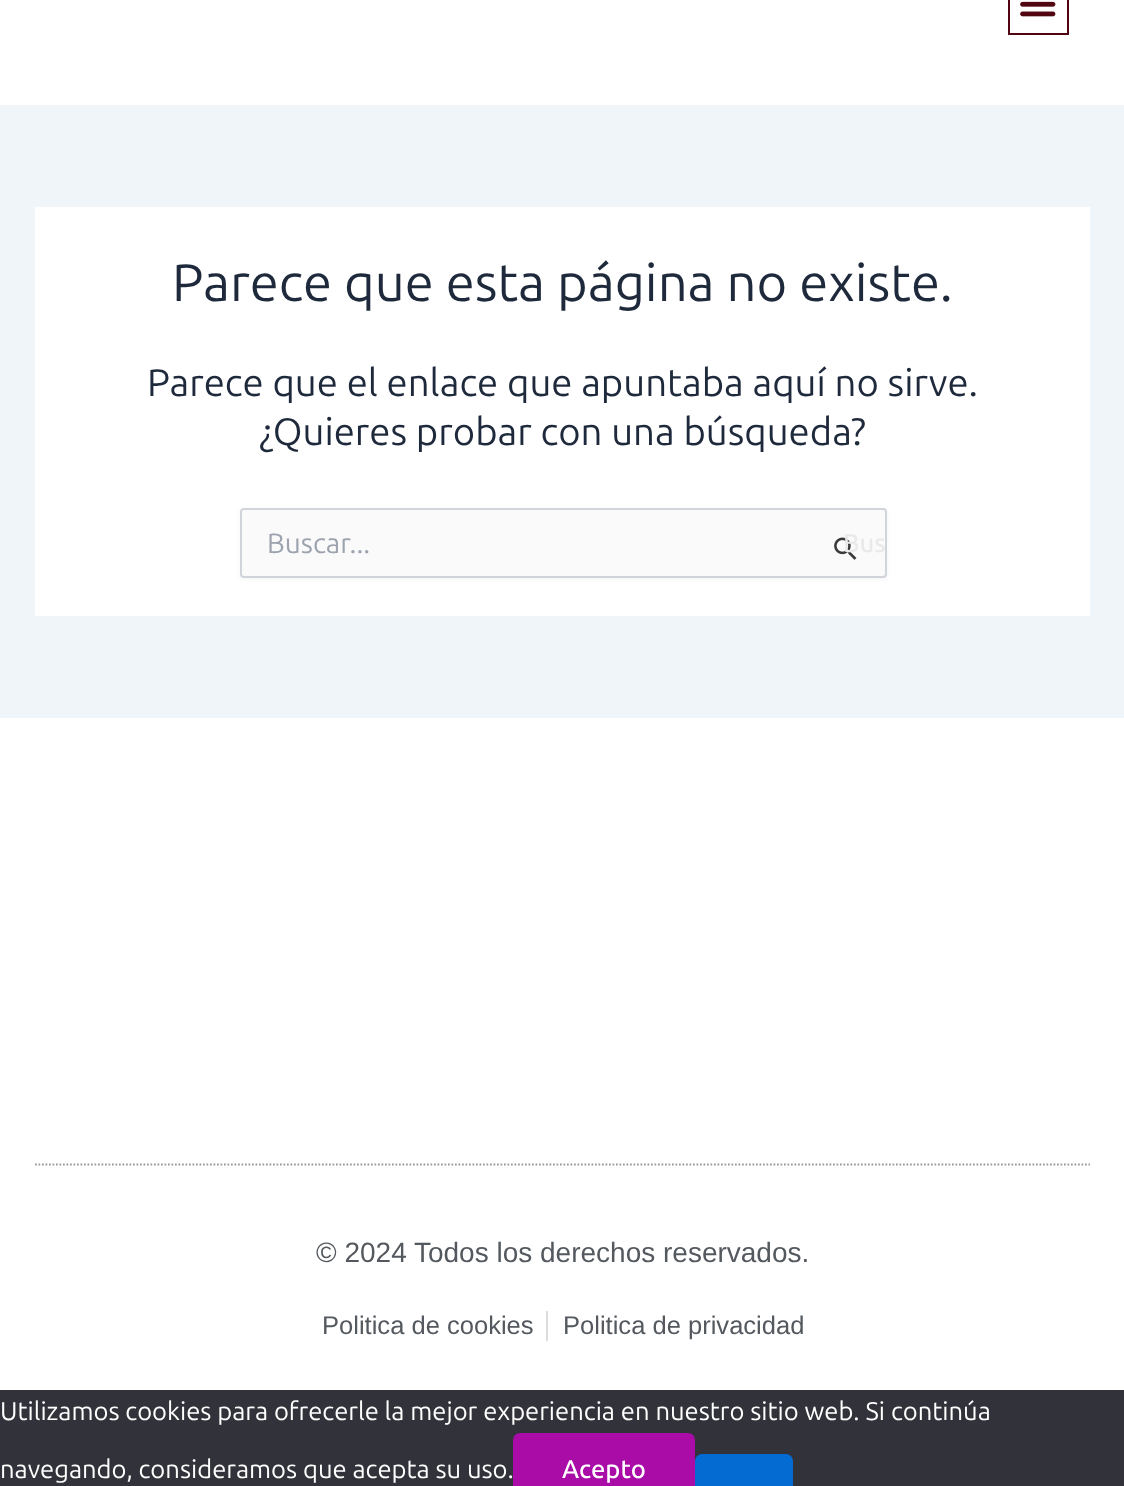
(async () => {
    const canvas = document.querySelector("canvas");
    canvas.width = 1124;
    canvas.height = 1486;
    const context = canvas.getContext("2d");
    context.miterLimit = 4;
    context.fontKerning = "normal";
    function write(s, x, y, font, color) {
        context.font = font;
        context.fillStyle = color;
        context.fillText(s, x, y);
    }
    function block(x, y, w, h, color) {
        context.fillStyle = color;
        context.fillRect(x, y, w, h);
    }
    function card(x, y, w, h, r, color) {
        context.fillStyle = color;
        context.beginPath();
        context.roundRect(x, y, w, h, r);
        context.fill();
    }
    async function photo(src, x, y, w, h) {
        const img = new Image();
        img.src = src;
        await img.decode();
        context.drawImage(img, x, y, w, h);
    }

    block(0, 0, 1124, 1486, "rgb(240, 245, 250)");
    block(0, 0, 1124, 105, "rgb(255, 255, 255)");
    context.strokeStyle = "rgb(81, 5, 16)";
    context.lineWidth = 2;
    context.strokeRect(1009, -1, 59, 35);
    await photo("media/1.png", 1020, 1, 36, 16);
    block(35, 207, 1055, 409, "rgb(255, 255, 255)");
    write("Parece que esta página no existe.", 172, 301, "52.5px Ubuntu", "rgb(30, 41, 59)");
    write("Parece que el enlace que apuntaba aquí no sirve.", 147, 396, "38.3px Ubuntu", "rgb(30, 41, 59)");
    write("¿Quieres probar con una búsqueda?", 259, 445, "38.3px Ubuntu", "rgb(30, 41, 59)");
    context.fillStyle = "rgba(0, 0, 0, 0.05)";
    context.filter = "blur(2px)";
    context.beginPath();
    context.roundRect(240, 509, 647, 70, 4);
    context.fill();
    context.filter = "none";
    context.fillStyle = "rgb(250, 250, 250)";
    context.beginPath();
    context.roundRect(241, 509, 645, 68, 3);
    context.fill();
    context.strokeStyle = "rgb(209, 213, 219)";
    context.stroke();
    write("Buscar...", 267, 553, "28px Ubuntu", "rgb(156, 163, 175)");
    await photo("media/2.png", 834, 537, 23, 23);
    write("Bus", 843, 552, "500 25.55px Ubuntu", "rgb(233, 233, 233)");
    block(0, 718, 1124, 672, "rgb(255, 255, 255)");
    context.beginPath();
    context.moveTo(35, 1164.5);
    context.lineTo(1090, 1164.5);
    context.strokeStyle = "rgb(155, 155, 155)";
    context.lineWidth = 1.8;
    context.setLineDash([1.75, 1.75]);
    context.stroke();
    write("© 2024 Todos los derechos reservados.", 316, 1262, "28px Liberation Sans", "rgb(84, 89, 95)");
    write("Politica de cookies", 322, 1334, "25.55px Liberation Sans", "rgb(84, 89, 95)");
    block(546, 1311, 2, 30, "rgb(221, 221, 221)");
    write("Politica de privacidad", 563, 1334, "25.55px Liberation Sans", "rgb(84, 89, 95)");
    block(0, 1390, 1124, 96, "rgb(50, 50, 58)");
    write("Utilizamos cookies para ofrecerle la mejor experiencia en nuestro sitio web. Si continúa", 0, 1420, "25.55px Ubuntu", "rgb(255, 255, 255)");
    write("navegando, consideramos que acepta su uso.", 0, 1478, "25.55px Ubuntu", "rgb(255, 255, 255)");
    card(513, 1433, 182, 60, 7, "rgb(169, 12, 167)");
    write("Acepto", 562, 1478, "500 25.55px Ubuntu", "rgb(255, 255, 255)");
    card(695, 1454, 98, 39, 7, "rgb(4, 107, 210)");
})();
